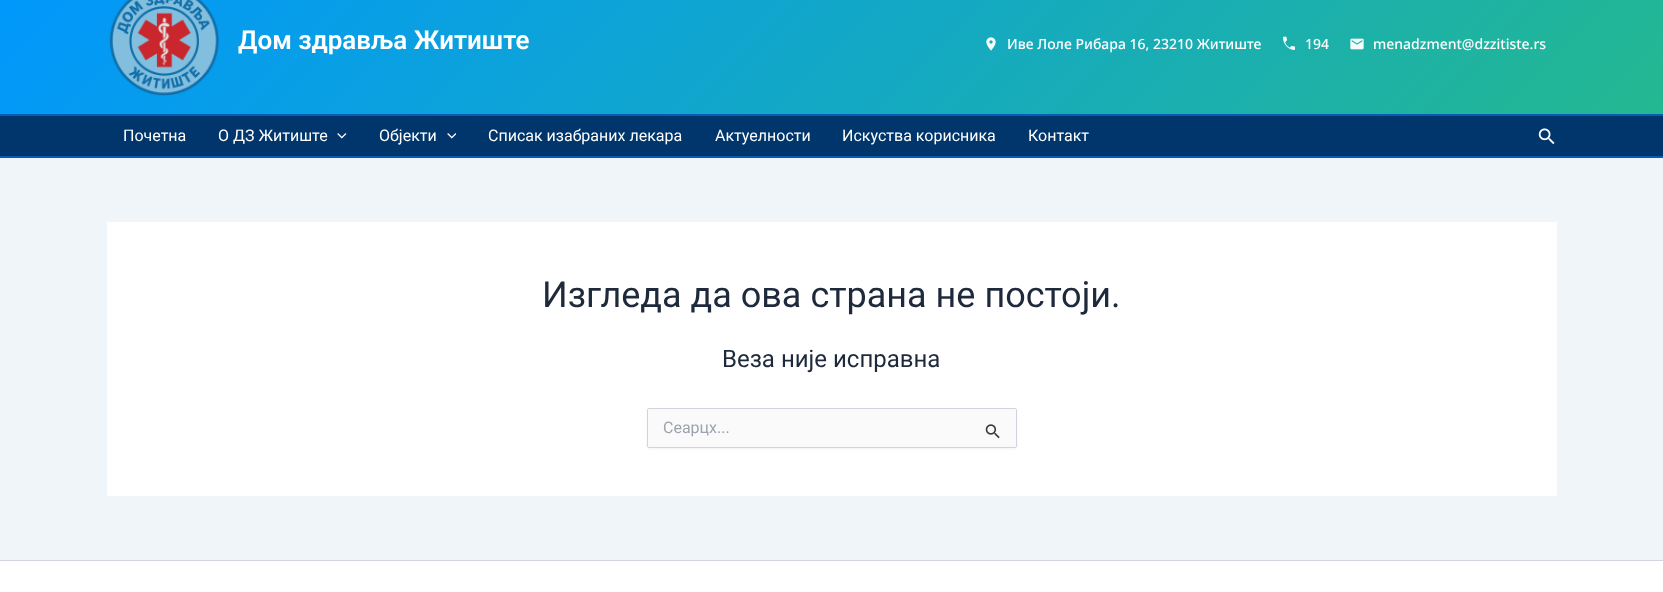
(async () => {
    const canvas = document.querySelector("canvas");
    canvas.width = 1663;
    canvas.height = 592;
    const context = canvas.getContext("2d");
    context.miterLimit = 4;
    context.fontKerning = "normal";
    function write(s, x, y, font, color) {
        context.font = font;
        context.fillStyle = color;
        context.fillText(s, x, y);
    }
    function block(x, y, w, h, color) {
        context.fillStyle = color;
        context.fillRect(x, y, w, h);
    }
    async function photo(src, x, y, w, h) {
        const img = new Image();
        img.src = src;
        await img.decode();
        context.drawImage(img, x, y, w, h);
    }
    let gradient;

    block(0, 0, 1663, 592, "rgb(240, 245, 250)");
    gradient = context.createLinearGradient(379, -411, 1284, 493);
    gradient.addColorStop(0, "rgb(0, 151, 255)");
    gradient.addColorStop(1, "rgb(36, 184, 145)");
    context.fillStyle = gradient;
    context.fillRect(0, 0, 1663, 114);
    block(0, 114, 1663, 2, "rgb(4, 92, 180)");
    await photo("media/1.png", 109, 0, 111, 96);
    write("Дом здравља Житиште", 238, 49, "600 26px Roboto", "rgb(255, 255, 255)");
    await photo("media/2.png", 986, 37, 10, 14);
    write("Иве Лоле Рибара 16, 23210 Житиште", 1007, 49, "500 14px Noto Sans", "rgb(255, 255, 255)");
    await photo("media/3.png", 1283, 36, 12, 14);
    write("194", 1305, 49, "500 14px Noto Sans", "rgb(255, 255, 255)");
    await photo("media/4.png", 1350, 38, 14, 12);
    write("menadzment@dzzitiste.rs", 1373, 49, "500 14px Noto Sans", "rgb(255, 255, 255)");
    block(0, 116, 1663, 40, "rgb(0, 54, 107)");
    block(0, 156, 1663, 2, "rgb(4, 92, 180)");
    write("Почетна", 123, 141, "16px Roboto", "rgb(255, 255, 255)");
    write("О ДЗ Житиште", 218, 141, "16px Roboto", "rgb(255, 255, 255)");
    await photo("media/5.png", 337, 133, 10, 6);
    write("Објекти", 379, 141, "16px Roboto", "rgb(255, 255, 255)");
    await photo("media/6.png", 447, 133, 9, 6);
    write("Списак изабраних лекара", 488, 141, "16px Roboto", "rgb(255, 255, 255)");
    write("Актуелности", 715, 141, "16px Roboto", "rgb(255, 255, 255)");
    write("Искуства корисника", 842, 141, "16px Roboto", "rgb(255, 255, 255)");
    write("Контакт", 1028, 141, "16px Roboto", "rgb(255, 255, 255)");
    await photo("media/7.png", 1538, 128, 17, 17);
    block(107, 222, 1450, 274, "rgb(255, 255, 255)");
    write("Изгледа да ова страна не постоји.", 542, 307, "36px Roboto", "rgb(30, 41, 59)");
    write("Веза није исправна", 722, 367, "24px Roboto", "rgb(30, 41, 59)");
    context.fillStyle = "rgba(0, 0, 0, 0.05)";
    context.filter = "blur(1px)";
    context.beginPath();
    context.roundRect(647, 409, 370, 40, 2);
    context.fill();
    context.filter = "none";
    context.fillStyle = "rgb(250, 250, 250)";
    context.beginPath();
    context.roundRect(647.5, 408.5, 369, 39, 1.5);
    context.fill();
    context.strokeStyle = "rgb(209, 213, 219)";
    context.stroke();
    write("Сеарцх...", 663, 433, "16px Roboto", "rgb(156, 163, 175)");
    await photo("media/8.png", 985, 424, 15, 15);
    block(0, 561, 1663, 31, "rgb(255, 255, 255)");
    block(0, 560, 1663, 1, "rgb(209, 213, 219)");
})();
